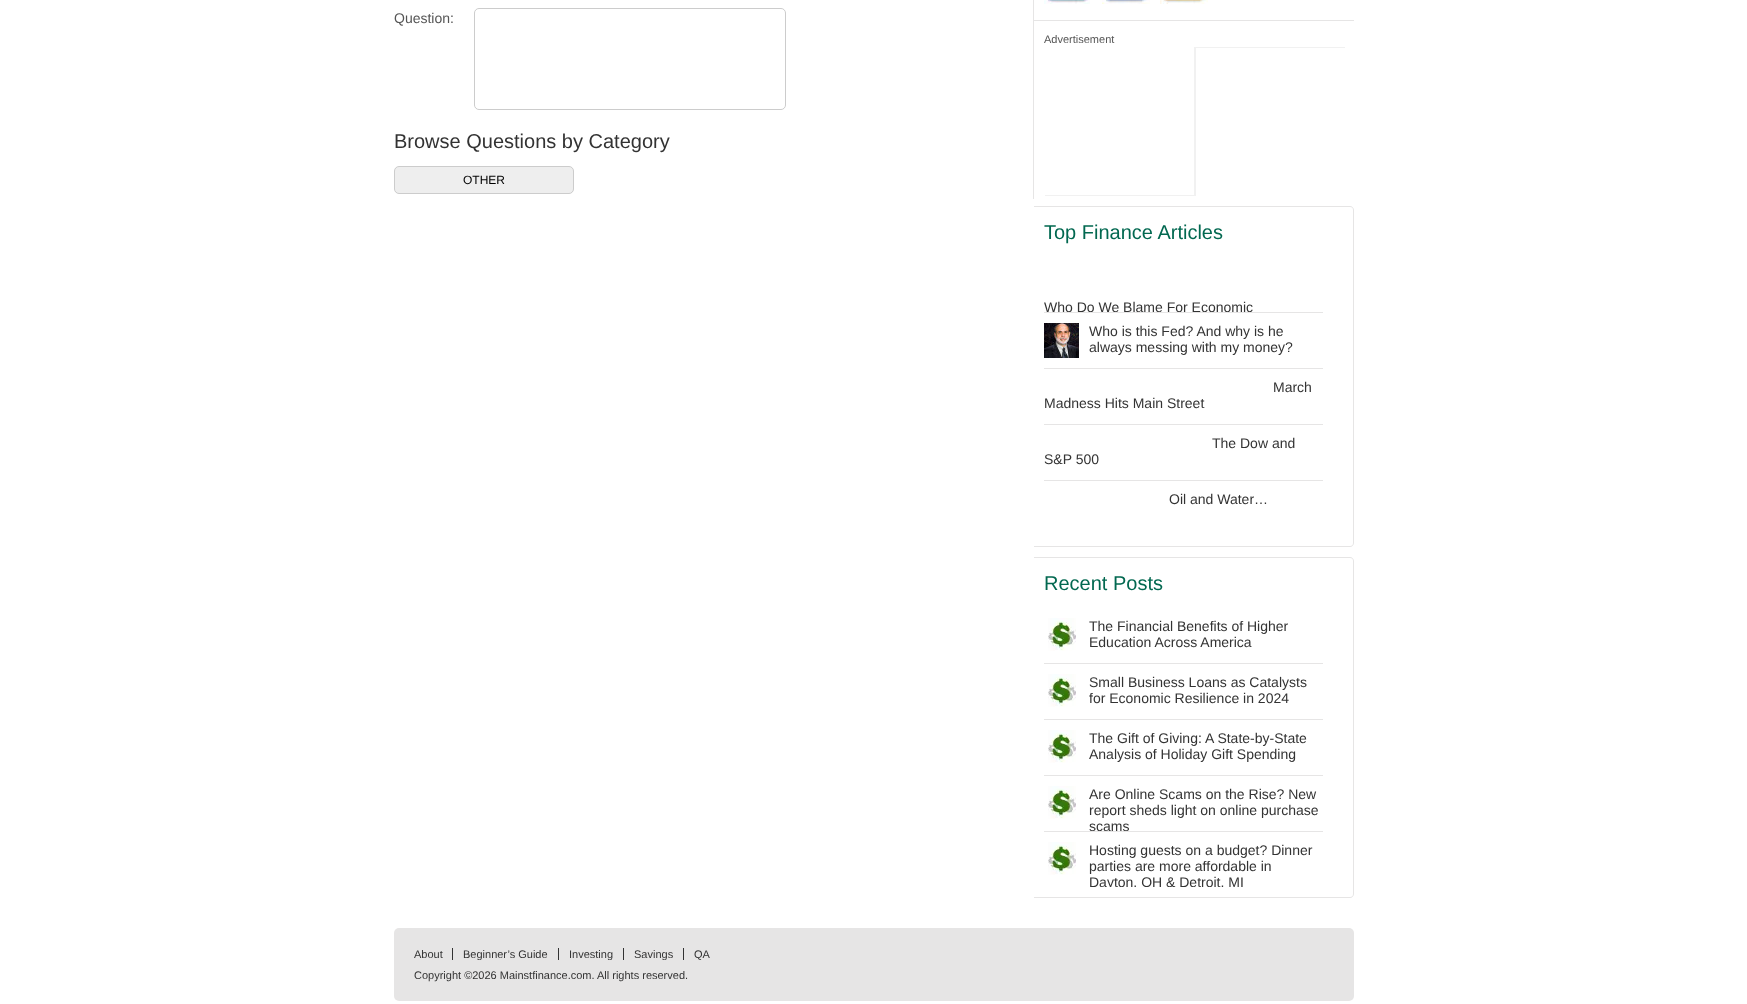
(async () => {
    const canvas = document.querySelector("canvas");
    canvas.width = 1747;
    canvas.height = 1004;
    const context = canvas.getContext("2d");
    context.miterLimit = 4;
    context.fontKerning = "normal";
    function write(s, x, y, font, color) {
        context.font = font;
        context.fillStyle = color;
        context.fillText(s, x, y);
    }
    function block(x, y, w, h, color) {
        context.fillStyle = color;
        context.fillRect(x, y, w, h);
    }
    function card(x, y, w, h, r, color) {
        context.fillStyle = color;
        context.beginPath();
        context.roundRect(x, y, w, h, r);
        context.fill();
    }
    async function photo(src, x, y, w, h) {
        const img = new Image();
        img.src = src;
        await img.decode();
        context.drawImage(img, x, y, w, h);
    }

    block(0, 0, 1747, 1004, "rgb(255, 255, 255)");
    block(1033, 0, 1, 199, "rgb(230, 229, 229)");
    write("Question:", 394, 23, "14px Liberation Sans", "rgb(85, 85, 85)");
    context.beginPath();
    context.roundRect(474.5, 8.5, 311, 101, 4.5);
    context.strokeStyle = "rgb(204, 204, 204)";
    context.stroke();
    write("Browse Questions by Category", 394, 148, "20px Liberation Sans", "rgb(51, 51, 51)");
    context.fillStyle = "rgb(238, 238, 238)";
    context.beginPath();
    context.roundRect(394.5, 166.5, 179, 27, 4.5);
    context.fill();
    context.stroke();
    write("OTHER", 463, 184, "12px Liberation Sans", "rgb(0, 0, 0)");
    await photo("media/1.png", 1044, 0, 46, 4);
    await photo("media/2.png", 1102, 0, 48, 4);
    await photo("media/3.png", 1160, 0, 48, 4);
    block(1034, 20, 320, 1, "rgb(230, 229, 229)");
    write("Advertisement", 1044, 43, "11px Liberation Sans", "rgb(85, 85, 85)");
    block(1194, 47, 1, 149, "rgb(241, 241, 241)");
    block(1044, 195, 151, 1, "rgb(241, 241, 241)");
    block(1044, 195, 1, 1, "rgb(255, 255, 255)");
    block(1195, 47, 151, 1, "rgb(241, 241, 241)");
    block(1345, 47, 1, 1, "rgb(255, 255, 255)");
    block(1195, 47, 1, 149, "rgb(241, 241, 241)");
    context.fillStyle = "rgb(230, 229, 229)";
    context.beginPath();
    context.moveTo(1034, 206);
    context.lineTo(1350, 206);
    context.bezierCurveTo(1352, 206, 1354, 208, 1354, 210);
    context.lineTo(1354, 543);
    context.bezierCurveTo(1354, 545, 1352, 547, 1350, 547);
    context.lineTo(1034, 547);
    context.closePath();
    context.moveTo(1034, 207);
    context.lineTo(1350, 207);
    context.bezierCurveTo(1352, 207, 1353, 208, 1353, 210);
    context.lineTo(1353, 543);
    context.bezierCurveTo(1353, 545, 1352, 546, 1350, 546);
    context.lineTo(1034, 546);
    context.closePath();
    context.fill("evenodd");
    write("Top Finance Articles", 1044, 239, "20px Liberation Sans", "rgb(2, 104, 80)");
    block(1044, 312, 279, 1, "rgb(230, 229, 229)");
    context.save();
    context.beginPath();
    context.rect(1044, 257, 279, 55);
    context.clip();
    write("Who Do We Blame For Economic", 1044, 312, "14px Liberation Sans", "rgb(51, 51, 51)");
    context.restore();
    block(1044, 368, 279, 1, "rgb(230, 229, 229)");
    await photo("media/4.png", 1044, 323, 35, 35);
    write("Who is this Fed? And why is he", 1089, 336, "14px Liberation Sans", "rgb(51, 51, 51)");
    write("always messing with my money?", 1089, 352, "14px Liberation Sans", "rgb(51, 51, 51)");
    block(1044, 424, 279, 1, "rgb(230, 229, 229)");
    write("March", 1273, 392, "14px Liberation Sans", "rgb(51, 51, 51)");
    write("Madness Hits Main Street", 1044, 408, "14px Liberation Sans", "rgb(51, 51, 51)");
    block(1044, 480, 279, 1, "rgb(230, 229, 229)");
    write("The Dow and", 1212, 448, "14px Liberation Sans", "rgb(51, 51, 51)");
    write("S&P 500", 1044, 464, "14px Liberation Sans", "rgb(51, 51, 51)");
    write("Oil and Water…", 1169, 504, "14px Liberation Sans", "rgb(51, 51, 51)");
    context.fillStyle = "rgb(230, 229, 229)";
    context.beginPath();
    context.moveTo(1034, 557);
    context.lineTo(1350, 557);
    context.bezierCurveTo(1352, 557, 1354, 559, 1354, 561);
    context.lineTo(1354, 894);
    context.bezierCurveTo(1354, 896, 1352, 898, 1350, 898);
    context.lineTo(1034, 898);
    context.closePath();
    context.moveTo(1034, 558);
    context.lineTo(1350, 558);
    context.bezierCurveTo(1352, 558, 1353, 559, 1353, 561);
    context.lineTo(1353, 894);
    context.bezierCurveTo(1353, 896, 1352, 897, 1350, 897);
    context.lineTo(1034, 897);
    context.closePath();
    context.fill("evenodd");
    write("Recent Posts", 1044, 590, "20px Liberation Sans", "rgb(2, 104, 80)");
    block(1044, 663, 279, 1, "rgb(230, 229, 229)");
    await photo("media/5.png", 1048, 618, 28, 33);
    write("The Financial Benefits of Higher", 1089, 631, "14px Liberation Sans", "rgb(51, 51, 51)");
    write("Education Across America", 1089, 647, "14px Liberation Sans", "rgb(51, 51, 51)");
    block(1044, 719, 279, 1, "rgb(230, 229, 229)");
    await photo("media/5.png", 1048, 674, 28, 33);
    write("Small Business Loans as Catalysts", 1089, 687, "14px Liberation Sans", "rgb(51, 51, 51)");
    write("for Economic Resilience in 2024", 1089, 703, "14px Liberation Sans", "rgb(51, 51, 51)");
    block(1044, 775, 279, 1, "rgb(230, 229, 229)");
    await photo("media/5.png", 1048, 730, 28, 33);
    write("The Gift of Giving: A State-by-State", 1089, 743, "14px Liberation Sans", "rgb(51, 51, 51)");
    write("Analysis of Holiday Gift Spending", 1089, 759, "14px Liberation Sans", "rgb(51, 51, 51)");
    block(1044, 831, 279, 1, "rgb(230, 229, 229)");
    await photo("media/5.png", 1048, 786, 28, 33);
    write("Are Online Scams on the Rise? New", 1089, 799, "14px Liberation Sans", "rgb(51, 51, 51)");
    write("report sheds light on online purchase", 1089, 815, "14px Liberation Sans", "rgb(51, 51, 51)");
    context.save();
    context.beginPath();
    context.rect(1044, 776, 279, 55);
    context.clip();
    write("scams", 1089, 831, "14px Liberation Sans", "rgb(51, 51, 51)");
    context.restore();
    await photo("media/5.png", 1048, 842, 28, 33);
    write("Hosting guests on a budget? Dinner", 1089, 855, "14px Liberation Sans", "rgb(51, 51, 51)");
    write("parties are more affordable in", 1089, 871, "14px Liberation Sans", "rgb(51, 51, 51)");
    context.save();
    context.beginPath();
    context.rect(1044, 832, 279, 55);
    context.clip();
    write("Dayton, OH & Detroit, MI", 1089, 887, "14px Liberation Sans", "rgb(51, 51, 51)");
    context.restore();
    card(394, 928, 960, 73, 5, "rgb(230, 229, 229)");
    write("About", 414, 958, "11px Liberation Sans", "rgb(51, 51, 51)");
    block(452, 948, 1, 12, "rgb(51, 51, 51)");
    context.save();
    context.beginPath();
    context.rect(414, 948, 920, 12);
    context.clip();
    write("Beginner’s Guide", 463, 958, "11px Liberation Sans", "rgb(51, 51, 51)");
    context.restore();
    block(558, 948, 1, 12, "rgb(51, 51, 51)");
    context.save();
    context.beginPath();
    context.rect(414, 948, 920, 12);
    context.clip();
    write("Investing", 569, 958, "11px Liberation Sans", "rgb(51, 51, 51)");
    context.restore();
    block(623, 948, 1, 12, "rgb(51, 51, 51)");
    context.save();
    context.beginPath();
    context.rect(414, 948, 920, 12);
    context.clip();
    write("Savings", 634, 958, "11px Liberation Sans", "rgb(51, 51, 51)");
    context.restore();
    block(683, 948, 1, 12, "rgb(51, 51, 51)");
    write("QA", 694, 958, "11px Liberation Sans", "rgb(51, 51, 51)");
    write("Copyright ©2026 Mainstfinance.com. All rights reserved.", 414, 979, "11px Liberation Sans", "rgb(51, 51, 51)");
})();
